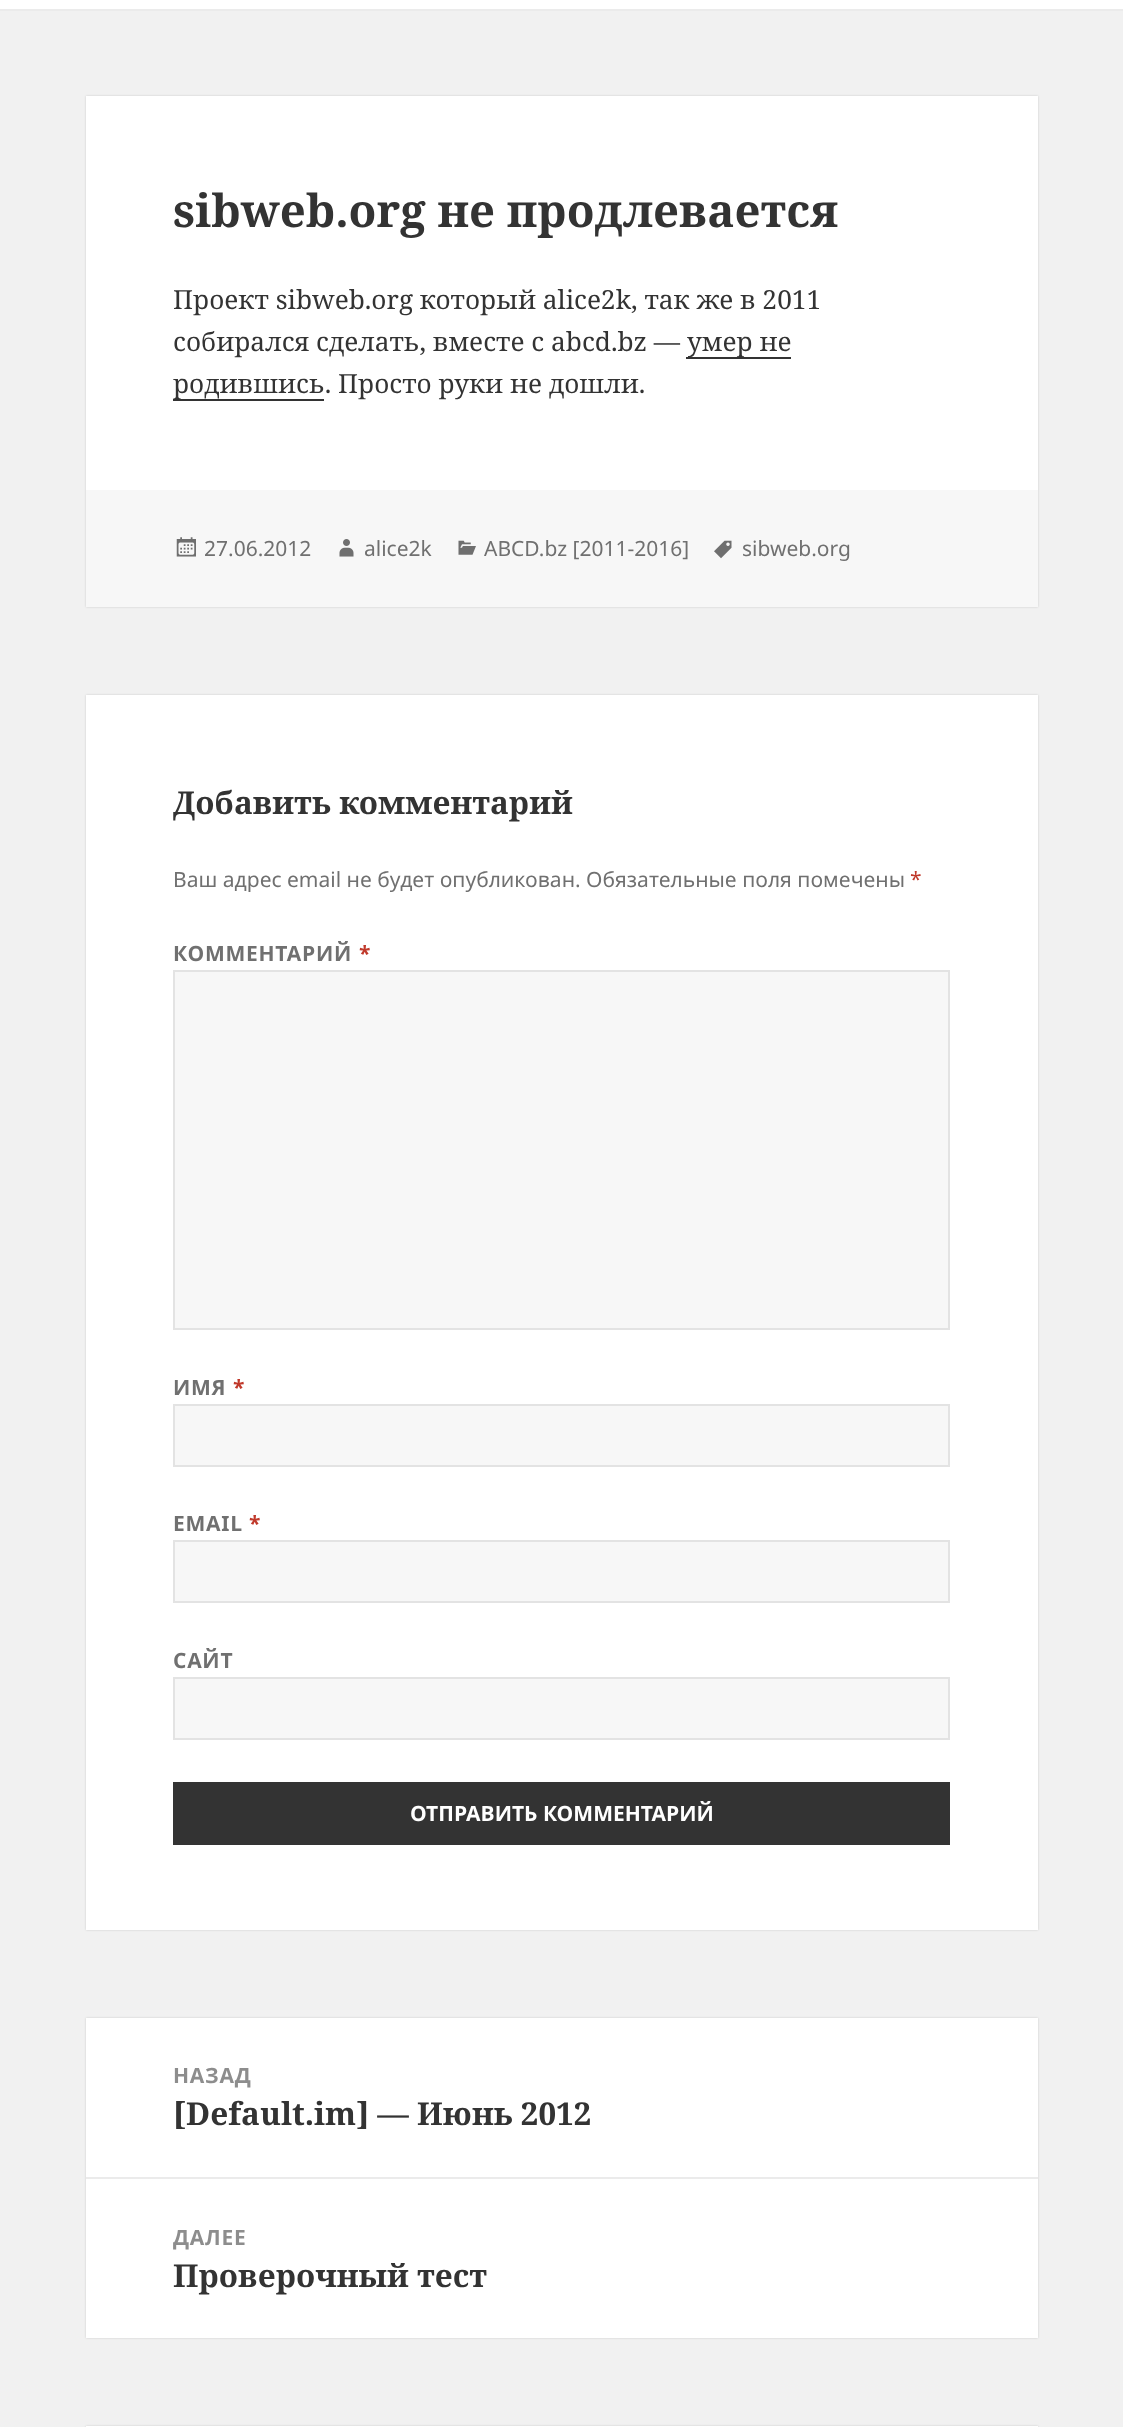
(async () => {
    const canvas = document.querySelector("canvas");
    canvas.width = 1123;
    canvas.height = 2427;
    const context = canvas.getContext("2d");
    context.miterLimit = 4;
    context.fontKerning = "normal";
    function write(s, x, y, font, color) {
        context.font = font;
        context.fillStyle = color;
        context.fillText(s, x, y);
    }
    function block(x, y, w, h, color) {
        context.fillStyle = color;
        context.fillRect(x, y, w, h);
    }
    async function photo(src, x, y, w, h) {
        const img = new Image();
        img.src = src;
        await img.decode();
        context.drawImage(img, x, y, w, h);
    }

    block(0, 0, 1123, 2427, "rgb(241, 241, 241)");
    block(0, 0, 1123, 9, "rgb(255, 255, 255)");
    block(0, 9, 1123, 2, "rgb(235, 235, 235)");
    context.fillStyle = "rgba(0, 0, 0, 0.15)";
    context.filter = "blur(1px)";
    context.beginPath();
    context.rect(86, 96, 952, 511);
    context.fill();
    context.filter = "none";
    block(86, 96, 952, 394, "rgb(255, 255, 255)");
    write("sibweb.org не продлевается", 173, 227, "bold 45.5px Noto Serif", "rgb(51, 51, 51)");
    write("Проект sibweb.org который alice2k, так же в 2011", 173, 309, "26.25px Noto Serif", "rgb(51, 51, 51)");
    write("собирался сделать, вместе с abcd.bz —", 173, 351, "26.25px Noto Serif", "rgb(51, 51, 51)");
    block(686, 357, 105, 2, "rgb(51, 51, 51)");
    write("умер не", 687, 351, "26.25px Noto Serif", "rgb(51, 51, 51)");
    block(173, 399, 151, 2, "rgb(51, 51, 51)");
    write("родившись. Просто руки не дошли.", 173, 393, "26.25px Noto Serif", "rgb(51, 51, 51)");
    block(86, 490, 952, 117, "rgb(247, 247, 247)");
    await photo("media/1.png", 176, 537, 20, 20);
    write("27.06.2012", 204, 556, "21px Noto Sans", "rgb(112, 112, 112)");
    await photo("media/2.png", 339, 539, 15, 18);
    write("alice2k", 364, 556, "21px Noto Sans", "rgb(112, 112, 112)");
    await photo("media/3.png", 458, 540, 18, 15);
    write("ABCD.bz [2011-2016]", 484, 556, "21px Noto Sans", "rgb(112, 112, 112)");
    await photo("media/4.png", 714, 540, 18, 19);
    write("sibweb.org", 742, 556, "21px Noto Sans", "rgb(112, 112, 112)");
    context.fillStyle = "rgba(0, 0, 0, 0.15)";
    context.filter = "blur(1px)";
    context.beginPath();
    context.rect(86, 695, 952, 1235);
    context.fill();
    context.filter = "none";
    block(86, 695, 952, 1235, "rgb(255, 255, 255)");
    write("Добавить комментарий", 173, 814, "bold 31.5px Noto Serif", "rgb(51, 51, 51)");
    write("Ваш адрес email не будет опубликован. Обязательные поля помечены", 173, 887, "21px Noto Sans", "rgb(112, 112, 112)");
    write("*", 910, 887, "21px Noto Sans", "rgb(192, 57, 43)");
    context.letterSpacing = "0.75px";
    write("КОММЕНТАРИЙ", 173, 961, "bold 21px Noto Sans", "rgb(112, 112, 112)");
    write("*", 359, 961, "bold 21px Noto Sans", "rgb(192, 57, 43)");
    context.fillStyle = "rgb(247, 247, 247)";
    context.beginPath();
    context.rect(174, 971, 775, 358);
    context.fill();
    context.strokeStyle = "rgb(227, 227, 227)";
    context.lineWidth = 2;
    context.stroke();
    write("ИМЯ", 173, 1395, "bold 21px Noto Sans", "rgb(112, 112, 112)");
    write("*", 233, 1395, "bold 21px Noto Sans", "rgb(192, 57, 43)");
    context.fillStyle = "rgb(247, 247, 247)";
    context.beginPath();
    context.rect(174, 1405, 775, 61);
    context.fill();
    context.stroke();
    write("EMAIL", 173, 1531, "bold 21px Noto Sans", "rgb(112, 112, 112)");
    write("*", 249, 1531, "bold 21px Noto Sans", "rgb(192, 57, 43)");
    context.fillStyle = "rgb(247, 247, 247)";
    context.beginPath();
    context.rect(174, 1541, 775, 61);
    context.fill();
    context.stroke();
    write("САЙТ", 173, 1668, "bold 21px Noto Sans", "rgb(112, 112, 112)");
    context.fillStyle = "rgb(247, 247, 247)";
    context.beginPath();
    context.rect(174, 1678, 775, 61);
    context.fill();
    context.stroke();
    block(173, 1782, 777, 63, "rgb(51, 51, 51)");
    context.letterSpacing = "0px";
    write("ОТПРАВИТЬ КОММЕНТАРИЙ", 410, 1821, "bold 21px Noto Sans", "rgb(255, 255, 255)");
    context.fillStyle = "rgba(0, 0, 0, 0.15)";
    context.filter = "blur(1px)";
    context.beginPath();
    context.rect(86, 2018, 952, 320);
    context.fill();
    context.filter = "none";
    block(86, 2018, 952, 320, "rgb(255, 255, 255)");
    context.letterSpacing = "0.75px";
    write("НАЗАД", 173, 2083, "bold 21px Noto Sans", "rgb(141, 141, 141)");
    context.letterSpacing = "0px";
    write("[Default.im] — Июнь 2012", 173, 2125, "bold 31.5px Noto Serif", "rgb(51, 51, 51)");
    block(86, 2177, 952, 2, "rgb(235, 235, 235)");
    context.letterSpacing = "0.75px";
    write("ДАЛЕЕ", 173, 2245, "bold 21px Noto Sans", "rgb(141, 141, 141)");
    context.letterSpacing = "0px";
    write("Проверочный тест", 173, 2287, "bold 31.5px Noto Serif", "rgb(51, 51, 51)");
    context.fillStyle = "rgba(0, 0, 0, 0.15)";
    context.filter = "blur(1px)";
    context.beginPath();
    context.rect(86, 2426, 952, 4);
    context.fill();
    context.filter = "none";
    block(86, 2426, 952, 1, "rgb(255, 255, 255)");
})();
